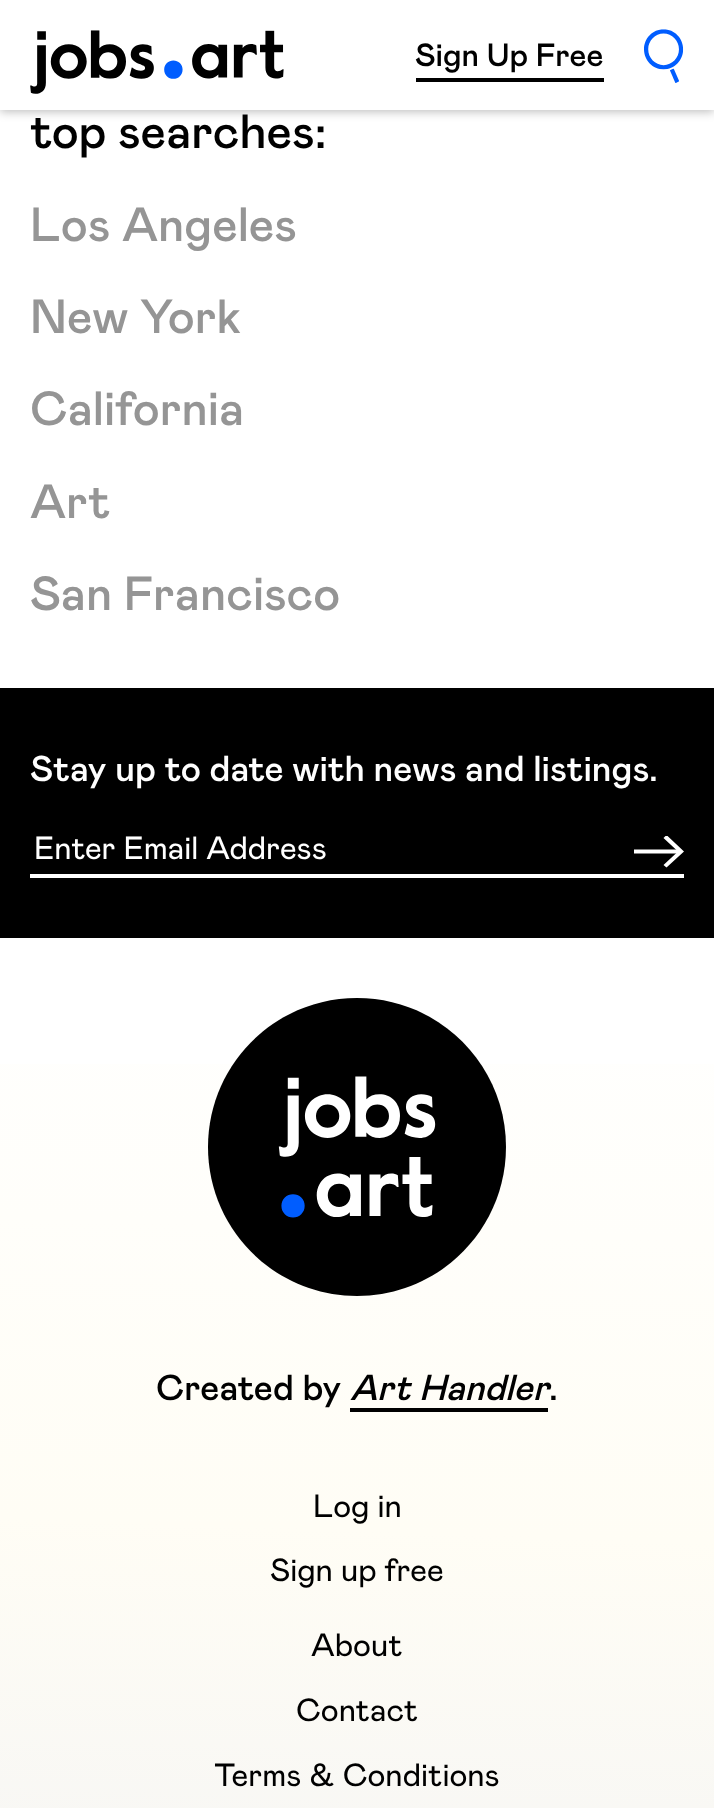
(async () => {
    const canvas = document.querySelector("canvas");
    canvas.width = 714;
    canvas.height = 1808;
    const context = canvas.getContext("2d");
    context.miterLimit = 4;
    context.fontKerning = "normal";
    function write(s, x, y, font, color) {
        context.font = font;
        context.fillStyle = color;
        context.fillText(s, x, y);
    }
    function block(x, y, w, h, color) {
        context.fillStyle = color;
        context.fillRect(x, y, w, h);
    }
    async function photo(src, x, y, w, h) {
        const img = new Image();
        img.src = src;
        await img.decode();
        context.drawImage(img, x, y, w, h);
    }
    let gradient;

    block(0, 0, 714, 1808, "rgb(255, 255, 255)");
    context.fillStyle = "rgba(0, 0, 0, 0.25)";
    context.filter = "blur(5px)";
    context.beginPath();
    context.rect(0, 2, 714, 110);
    context.fill();
    context.filter = "none";
    block(0, 0, 714, 110, "rgb(255, 255, 255)");
    await photo("media/1.png", 30, 30, 254, 64);
    block(416, 78, 188, 4, "rgb(0, 0, 0)");
    write("Sign Up Free", 415, 66, "500 32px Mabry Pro", "rgb(0, 0, 0)");
    await photo("media/2.png", 644, 29, 40, 54);
    write("top searches:", 30, 148, "500 48px Mabry Pro", "rgb(0, 0, 0)");
    write("Los Angeles", 30, 241, "500 48px Mabry Pro", "rgb(149, 149, 149)");
    write("New York", 30, 333, "500 48px Mabry Pro", "rgb(149, 149, 149)");
    write("California", 30, 425, "500 48px Mabry Pro", "rgb(149, 149, 149)");
    write("Art", 30, 518, "500 48px Mabry Pro", "rgb(149, 149, 149)");
    write("San Francisco", 30, 610, "500 48px Mabry Pro", "rgb(149, 149, 149)");
    block(0, 688, 714, 250, "rgb(0, 0, 0)");
    write("Stay up to date with news and listings.", 30, 781, "500 36px Mabry Pro", "rgb(255, 255, 255)");
    block(30, 874, 654, 4, "rgb(255, 255, 255)");
    write("Enter Email Address", 34, 859, "32px Mabry Pro", "rgb(255, 255, 255)");
    context.beginPath();
    context.moveTo(634, 851.5);
    context.lineTo(679.5, 851.5);
    context.strokeStyle = "rgb(255, 255, 255)";
    context.lineWidth = 4;
    context.stroke();
    context.save();
    context.beginPath();
    context.rect(634, 836, 50, 32);
    context.clip();
    context.beginPath();
    context.moveTo(666.5, 835);
    context.lineTo(663.5, 838);
    context.lineTo(678, 851.5);
    context.lineTo(663.5, 865);
    context.lineTo(666.5, 867.5);
    context.lineTo(684, 851.5);
    context.closePath();
    context.fill("evenodd");
    context.restore();
    gradient = context.createLinearGradient(378, 926, 336, 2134);
    gradient.addColorStop(0, "rgb(255, 255, 255)");
    gradient.addColorStop(0.5, "rgb(255, 253, 245)");
    gradient.addColorStop(0.9, "rgb(244, 244, 244)");
    context.fillStyle = gradient;
    context.fillRect(0, 1064, 714, 744);
    await photo("media/3.png", 208, 998, 298, 298);
    write("Created by", 156, 1400, "500 36px Mabry Pro", "rgb(0, 0, 0)");
    write("Art Handler", 350, 1400, "italic 500 36px Mabry Pro", "rgb(0, 0, 0)");
    block(350, 1408, 198, 4, "rgb(0, 0, 0)");
    write(".", 549, 1400, "500 36px Mabry Pro", "rgb(0, 0, 0)");
    write("Log in", 313, 1517, "32px Mabry Pro", "rgb(0, 0, 0)");
    write("Sign up free", 270, 1581, "32px Mabry Pro", "rgb(0, 0, 0)");
    write("About", 311, 1656, "32px Mabry Pro", "rgb(0, 0, 0)");
    write("Contact", 296, 1721, "32px Mabry Pro", "rgb(0, 0, 0)");
    write("Terms & Conditions", 214, 1786, "32px Mabry Pro", "rgb(0, 0, 0)");
})();
